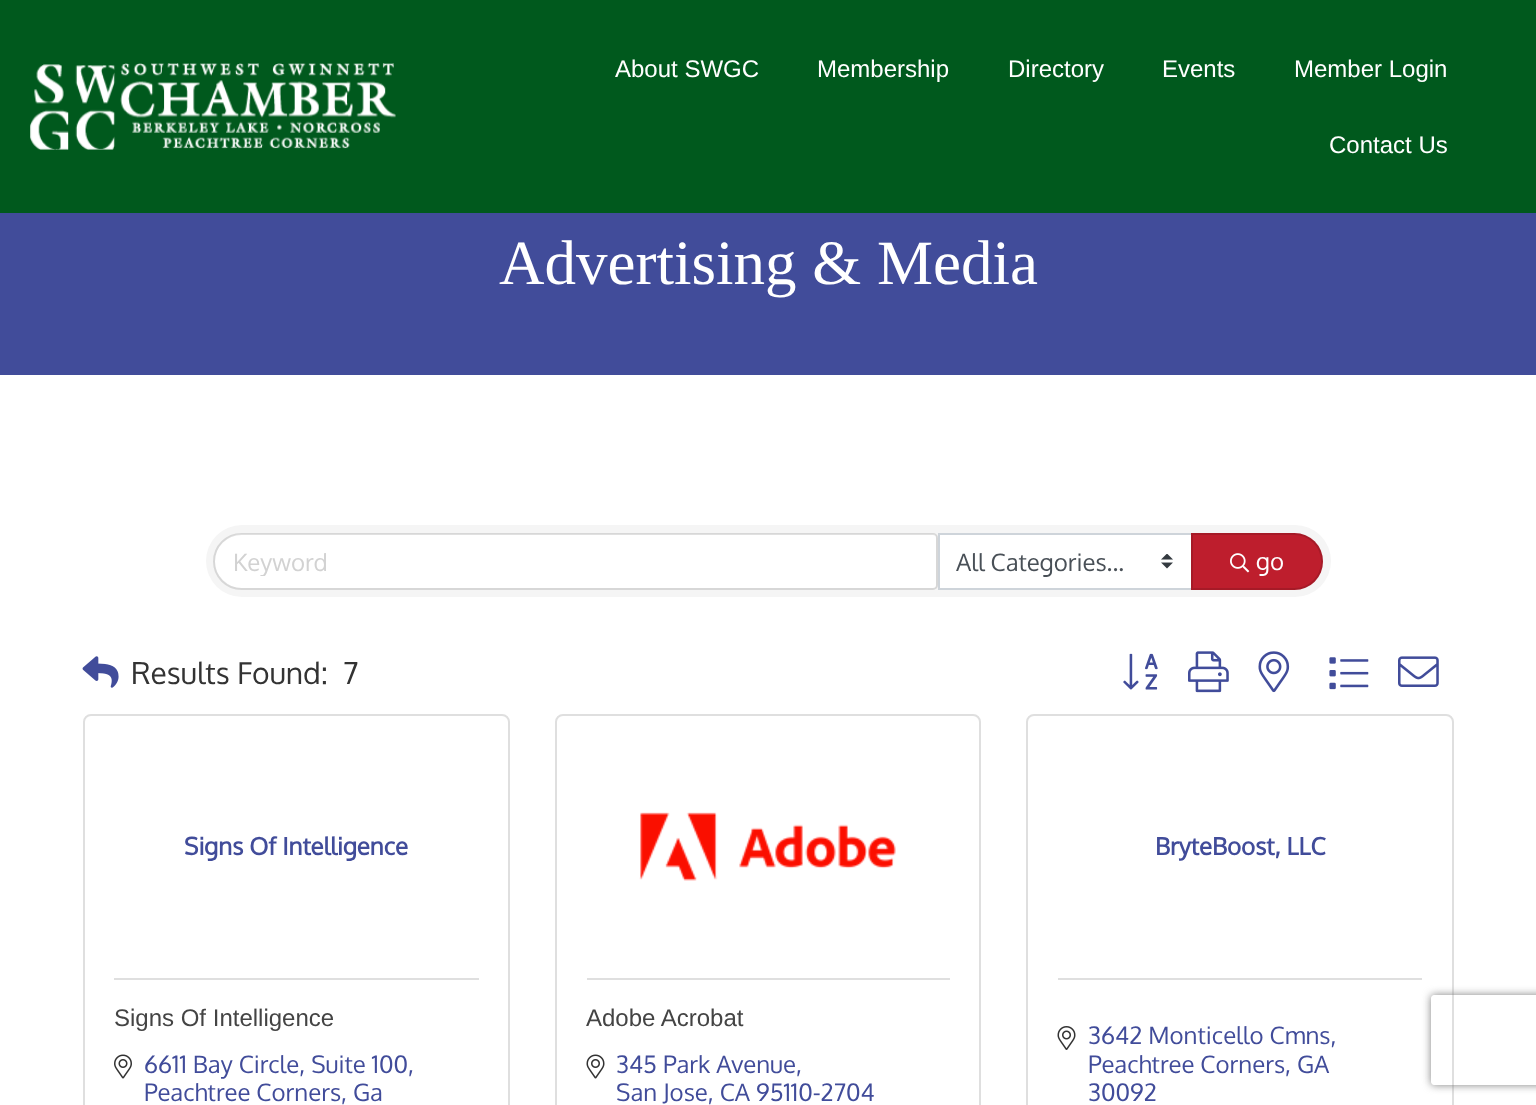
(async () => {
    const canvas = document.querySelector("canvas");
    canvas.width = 1536;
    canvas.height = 1105;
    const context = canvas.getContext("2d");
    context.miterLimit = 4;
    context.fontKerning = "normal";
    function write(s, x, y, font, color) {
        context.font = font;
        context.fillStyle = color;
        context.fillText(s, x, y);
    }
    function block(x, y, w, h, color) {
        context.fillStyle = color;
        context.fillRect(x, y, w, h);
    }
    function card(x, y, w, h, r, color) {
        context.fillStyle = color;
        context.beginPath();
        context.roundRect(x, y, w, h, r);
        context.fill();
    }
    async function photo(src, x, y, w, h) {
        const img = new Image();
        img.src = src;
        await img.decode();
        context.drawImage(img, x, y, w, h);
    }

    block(0, 0, 1536, 1105, "rgb(255, 255, 255)");
    block(0, 0, 1536, 213, "rgb(0, 89, 29)");
    await photo("media/1.png", 30, 63, 366, 87);
    write("About SWGC", 615, 77, "24px Liberation Sans", "rgb(255, 255, 255)");
    write("Membership", 817, 77, "24px Liberation Sans", "rgb(255, 255, 255)");
    write("Directory", 1008, 77, "24px Liberation Sans", "rgb(255, 255, 255)");
    write("Events", 1162, 77, "24px Liberation Sans", "rgb(255, 255, 255)");
    write("Member Login", 1294, 77, "24px Liberation Sans", "rgb(255, 255, 255)");
    write("Contact Us", 1329, 153, "24px Liberation Sans", "rgb(255, 255, 255)");
    block(0, 213, 1536, 162, "rgb(65, 76, 154)");
    write("Advertising & Media", 499, 284, "63px Liberation Serif", "rgb(255, 255, 255)");
    card(206, 525, 1125, 72, 36, "rgb(245, 245, 245)");
    context.fillStyle = "rgb(255, 255, 255)";
    context.beginPath();
    context.roundRect(215, 534, 721, 54, [27, 3, 3, 27]);
    context.fill();
    context.beginPath();
    context.roundRect(214, 534, 723, 55, [27.5, 4, 4, 27.5]);
    context.strokeStyle = "rgba(0, 0, 0, 0.12)";
    context.lineWidth = 2;
    context.stroke();
    context.save();
    context.beginPath();
    context.rect(233, 546, 685, 30);
    context.clip();
    write("Keyword", 233, 571, "24px Oxygen", "rgb(210, 210, 210)");
    context.restore();
    block(940, 535, 251, 53, "rgb(255, 255, 255)");
    await photo("media/2.png", 1161, 554, 12, 15);
    context.strokeStyle = "rgb(206, 212, 218)";
    context.strokeRect(939, 534, 253, 55);
    write("All Categories...", 956, 571, "24px Oxygen", "rgb(73, 80, 87)");
    context.fillStyle = "rgb(190, 30, 45)";
    context.beginPath();
    context.roundRect(1191, 533, 132, 57, [0, 28.5, 28.5, 0]);
    context.fill();
    context.beginPath();
    context.roundRect(1192, 534, 130, 55, [0, 27.5, 27.5, 0]);
    context.strokeStyle = "rgba(0, 0, 0, 0.12)";
    context.stroke();
    await photo("media/3.png", 1230, 553, 20, 20);
    write("go", 1256, 570, "24px Oxygen", "rgb(255, 255, 255)");
    await photo("media/4.png", 82, 656, 37, 32);
    write("Results Found:", 131, 684, "30px Oxygen", "rgb(51, 51, 51)");
    write("7", 343, 684, "30px Oxygen", "rgb(51, 51, 51)");
    await photo("media/5.png", 1123, 653, 35, 37);
    await photo("media/6.png", 1188, 651, 41, 42);
    await photo("media/7.png", 1258, 651, 32, 42);
    await photo("media/8.png", 1329, 657, 40, 33);
    await photo("media/9.png", 1398, 656, 41, 31);
    context.beginPath();
    context.roundRect(84, 715, 425, 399, 7);
    context.strokeStyle = "rgb(223, 223, 223)";
    context.stroke();
    write("Signs Of Intelligence", 184, 855, "bold 24px Oxygen", "rgb(65, 76, 154)");
    block(114, 978, 365, 2, "rgb(223, 223, 223)");
    write("Signs Of Intelligence", 114, 1026, "24px Liberation Sans", "rgb(68, 68, 68)");
    await photo("media/10.png", 114, 1054, 18, 25);
    write("6611 Bay Circle, Suite 100,", 144, 1073, "24px Oxygen", "rgb(65, 76, 154)");
    write("Peachtree Corners, Ga", 144, 1101, "24px Oxygen", "rgb(65, 76, 154)");
    context.beginPath();
    context.roundRect(556, 715, 424, 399, 7);
    context.stroke();
    await photo("media/11.png", 639, 812, 257, 69);
    block(587, 978, 363, 2, "rgb(223, 223, 223)");
    write("Adobe Acrobat", 586, 1026, "24px Liberation Sans", "rgb(68, 68, 68)");
    await photo("media/12.png", 586, 1054, 19, 25);
    write("345 Park Avenue,", 616, 1073, "24px Oxygen", "rgb(65, 76, 154)");
    write("San Jose, CA 95110-2704", 616, 1101, "24px Oxygen", "rgb(65, 76, 154)");
    context.beginPath();
    context.roundRect(1027, 715, 426, 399, 7);
    context.stroke();
    write("BryteBoost, LLC", 1155, 855, "bold 24px Oxygen", "rgb(65, 76, 154)");
    block(1058, 978, 364, 2, "rgb(223, 223, 223)");
    await photo("media/13.png", 1057, 1026, 19, 24);
    write("3642 Monticello Cmns,", 1088, 1044, "24px Oxygen", "rgb(65, 76, 154)");
    write("Peachtree Corners, GA", 1088, 1073, "24px Oxygen", "rgb(65, 76, 154)");
    write("30092", 1088, 1101, "24px Oxygen", "rgb(65, 76, 154)");
    context.save();
    context.beginPath();
    context.moveTo(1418, 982);
    context.lineTo(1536, 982);
    context.lineTo(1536, 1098);
    context.lineTo(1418, 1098);
    context.closePath();
    context.moveTo(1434, 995);
    context.lineTo(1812, 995);
    context.bezierCurveTo(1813.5, 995, 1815, 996.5, 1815, 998);
    context.lineTo(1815, 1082);
    context.bezierCurveTo(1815, 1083.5, 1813.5, 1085, 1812, 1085);
    context.lineTo(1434, 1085);
    context.bezierCurveTo(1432.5, 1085, 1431, 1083.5, 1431, 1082);
    context.lineTo(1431, 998);
    context.bezierCurveTo(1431, 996.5, 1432.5, 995, 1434, 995);
    context.closePath();
    context.clip("evenodd");
    context.fillStyle = "rgb(128, 128, 128)";
    context.filter = "blur(4px)";
    context.beginPath();
    context.roundRect(1431, 995, 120, 90, 3);
    context.fill();
    context.filter = "none";
    context.restore();
})();
